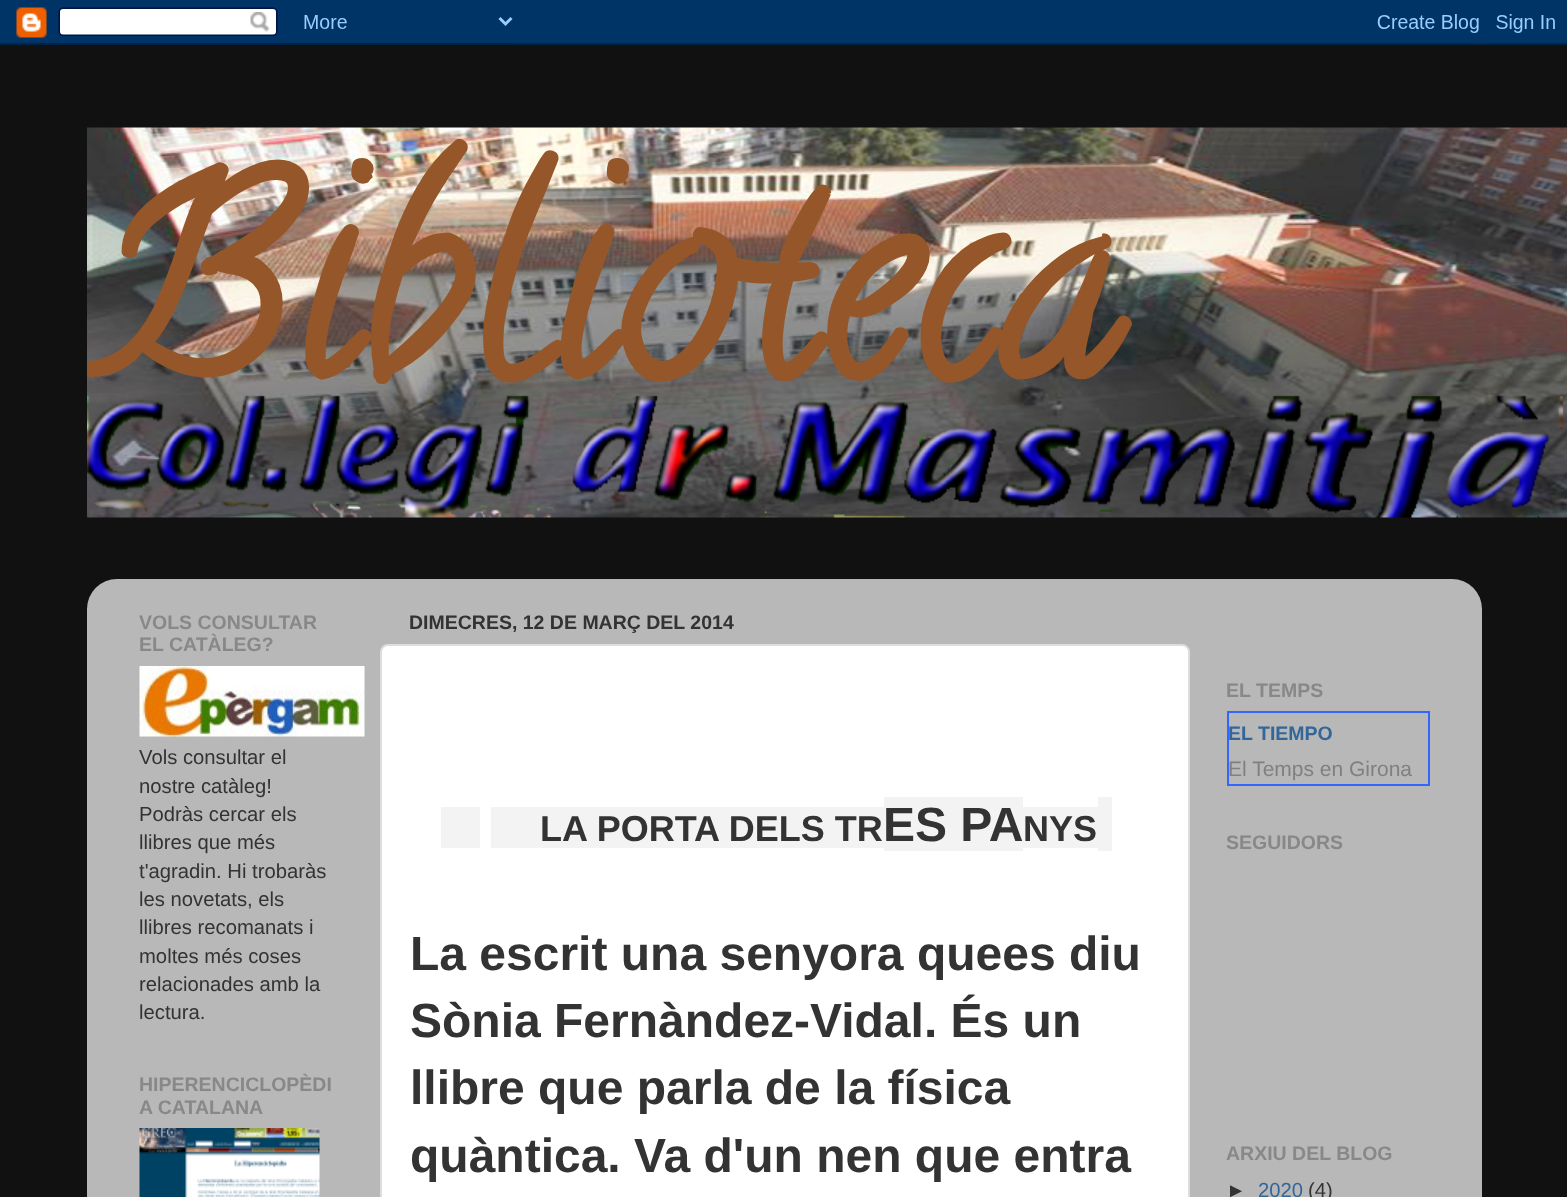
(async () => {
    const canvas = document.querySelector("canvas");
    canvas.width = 1567;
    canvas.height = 1197;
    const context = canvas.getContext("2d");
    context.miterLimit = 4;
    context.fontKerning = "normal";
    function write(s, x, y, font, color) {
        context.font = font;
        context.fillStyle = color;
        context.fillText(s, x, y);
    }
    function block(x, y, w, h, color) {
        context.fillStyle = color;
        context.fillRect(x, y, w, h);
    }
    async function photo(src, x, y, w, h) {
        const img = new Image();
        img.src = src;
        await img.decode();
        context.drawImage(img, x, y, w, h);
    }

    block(0, 0, 1567, 1197, "rgb(17, 17, 17)");
    await photo("media/1.png", 0, 0, 1567, 45);
    await photo("media/2.png", 87, 127, 1480, 391);
    context.save();
    context.beginPath();
    context.rect(87, 75, 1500, 494);
    context.clip();
    write("Biblioteca", 86, 369, "bold 270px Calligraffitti", "rgb(149, 87, 41)");
    context.restore();
    await photo("media/3.png", 87, 579, 1395, 618);
    write("VOLS CONSULTAR", 139, 629, "bold 19.5px Liberation Sans", "rgb(136, 136, 136)");
    write("EL CATÀLEG?", 139, 651, "bold 19.5px Liberation Sans", "rgb(136, 136, 136)");
    await photo("media/4.png", 139, 666, 226, 71);
    write("Vols consultar el", 139, 764, "20.25px Liberation Sans", "rgb(51, 51, 51)");
    write("nostre catàleg!", 139, 793, "20.25px Liberation Sans", "rgb(51, 51, 51)");
    write("Podràs cercar els", 139, 821, "20.25px Liberation Sans", "rgb(51, 51, 51)");
    write("llibres que més", 139, 849, "20.25px Liberation Sans", "rgb(51, 51, 51)");
    write("t'agradin. Hi trobaràs", 139, 878, "20.25px Liberation Sans", "rgb(51, 51, 51)");
    write("les novetats, els", 139, 906, "20.25px Liberation Sans", "rgb(51, 51, 51)");
    write("llibres recomanats i", 139, 934, "20.25px Liberation Sans", "rgb(51, 51, 51)");
    write("moltes més coses", 139, 963, "20.25px Liberation Sans", "rgb(51, 51, 51)");
    write("relacionades amb la", 139, 991, "20.25px Liberation Sans", "rgb(51, 51, 51)");
    write("lectura.", 139, 1019, "20.25px Liberation Sans", "rgb(51, 51, 51)");
    write("HIPERENCICLOPÈDI", 139, 1091, "bold 19.5px Liberation Sans", "rgb(136, 136, 136)");
    write("A CATALANA", 139, 1114, "bold 19.5px Liberation Sans", "rgb(136, 136, 136)");
    await photo("media/5.png", 139, 1128, 181, 69);
    write("DIMECRES, 12 DE MARÇ DEL 2014", 409, 629, "bold 19.5px Liberation Sans", "rgb(51, 51, 51)");
    context.fillStyle = "rgb(255, 255, 255)";
    context.beginPath();
    context.roundRect(381, 645, 808, 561, 7);
    context.fill();
    context.strokeStyle = "rgb(221, 221, 221)";
    context.lineWidth = 2;
    context.stroke();
    block(491, 807, 393, 41, "rgb(243, 243, 243)");
    write("LA PORTA DELS TR", 540, 841, "bold 36px Liberation Sans", "rgb(51, 51, 51)");
    block(441, 807, 39, 41, "rgb(243, 243, 243)");
    block(884, 797, 139, 54, "rgb(243, 243, 243)");
    write("ES PA", 883, 841, "bold 48px Liberation Sans", "rgb(51, 51, 51)");
    block(1023, 807, 75, 41, "rgb(243, 243, 243)");
    write("NYS", 1023, 841, "bold 36px Liberation Sans", "rgb(51, 51, 51)");
    block(1098, 797, 14, 54, "rgb(243, 243, 243)");
    write("La escrit una senyora quees diu", 410, 970, "bold 48px Liberation Sans", "rgb(51, 51, 51)");
    write("Sònia Fernàndez-Vidal. És un", 410, 1037, "bold 48px Liberation Sans", "rgb(51, 51, 51)");
    write("llibre que parla de la física", 410, 1104, "bold 48px Liberation Sans", "rgb(51, 51, 51)");
    write("quàntica. Va d'un nen que entra", 410, 1172, "bold 48px Liberation Sans", "rgb(51, 51, 51)");
    write("EL TEMPS", 1226, 697, "bold 19.5px Liberation Sans", "rgb(136, 136, 136)");
    context.strokeStyle = "rgb(51, 102, 255)";
    context.strokeRect(1228, 712, 201, 73);
    write("EL TIEMPO", 1228, 740, "bold 19.5px Liberation Sans", "rgb(51, 102, 153)");
    write("El Temps en Girona", 1228, 776, "21px Liberation Sans", "rgb(128, 128, 128)");
    write("SEGUIDORS", 1226, 849, "bold 19.5px Liberation Sans", "rgb(136, 136, 136)");
    write("ARXIU DEL BLOG", 1226, 1160, "bold 19.5px Liberation Sans", "rgb(136, 136, 136)");
    write("►", 1226, 1197, "20.25px Liberation Sans", "rgb(51, 51, 51)");
    write("2020", 1258, 1197, "20.25px Liberation Sans", "rgb(51, 102, 153)");
    write("(4)", 1308, 1197, "20.25px Liberation Sans", "rgb(51, 51, 51)");
})();
